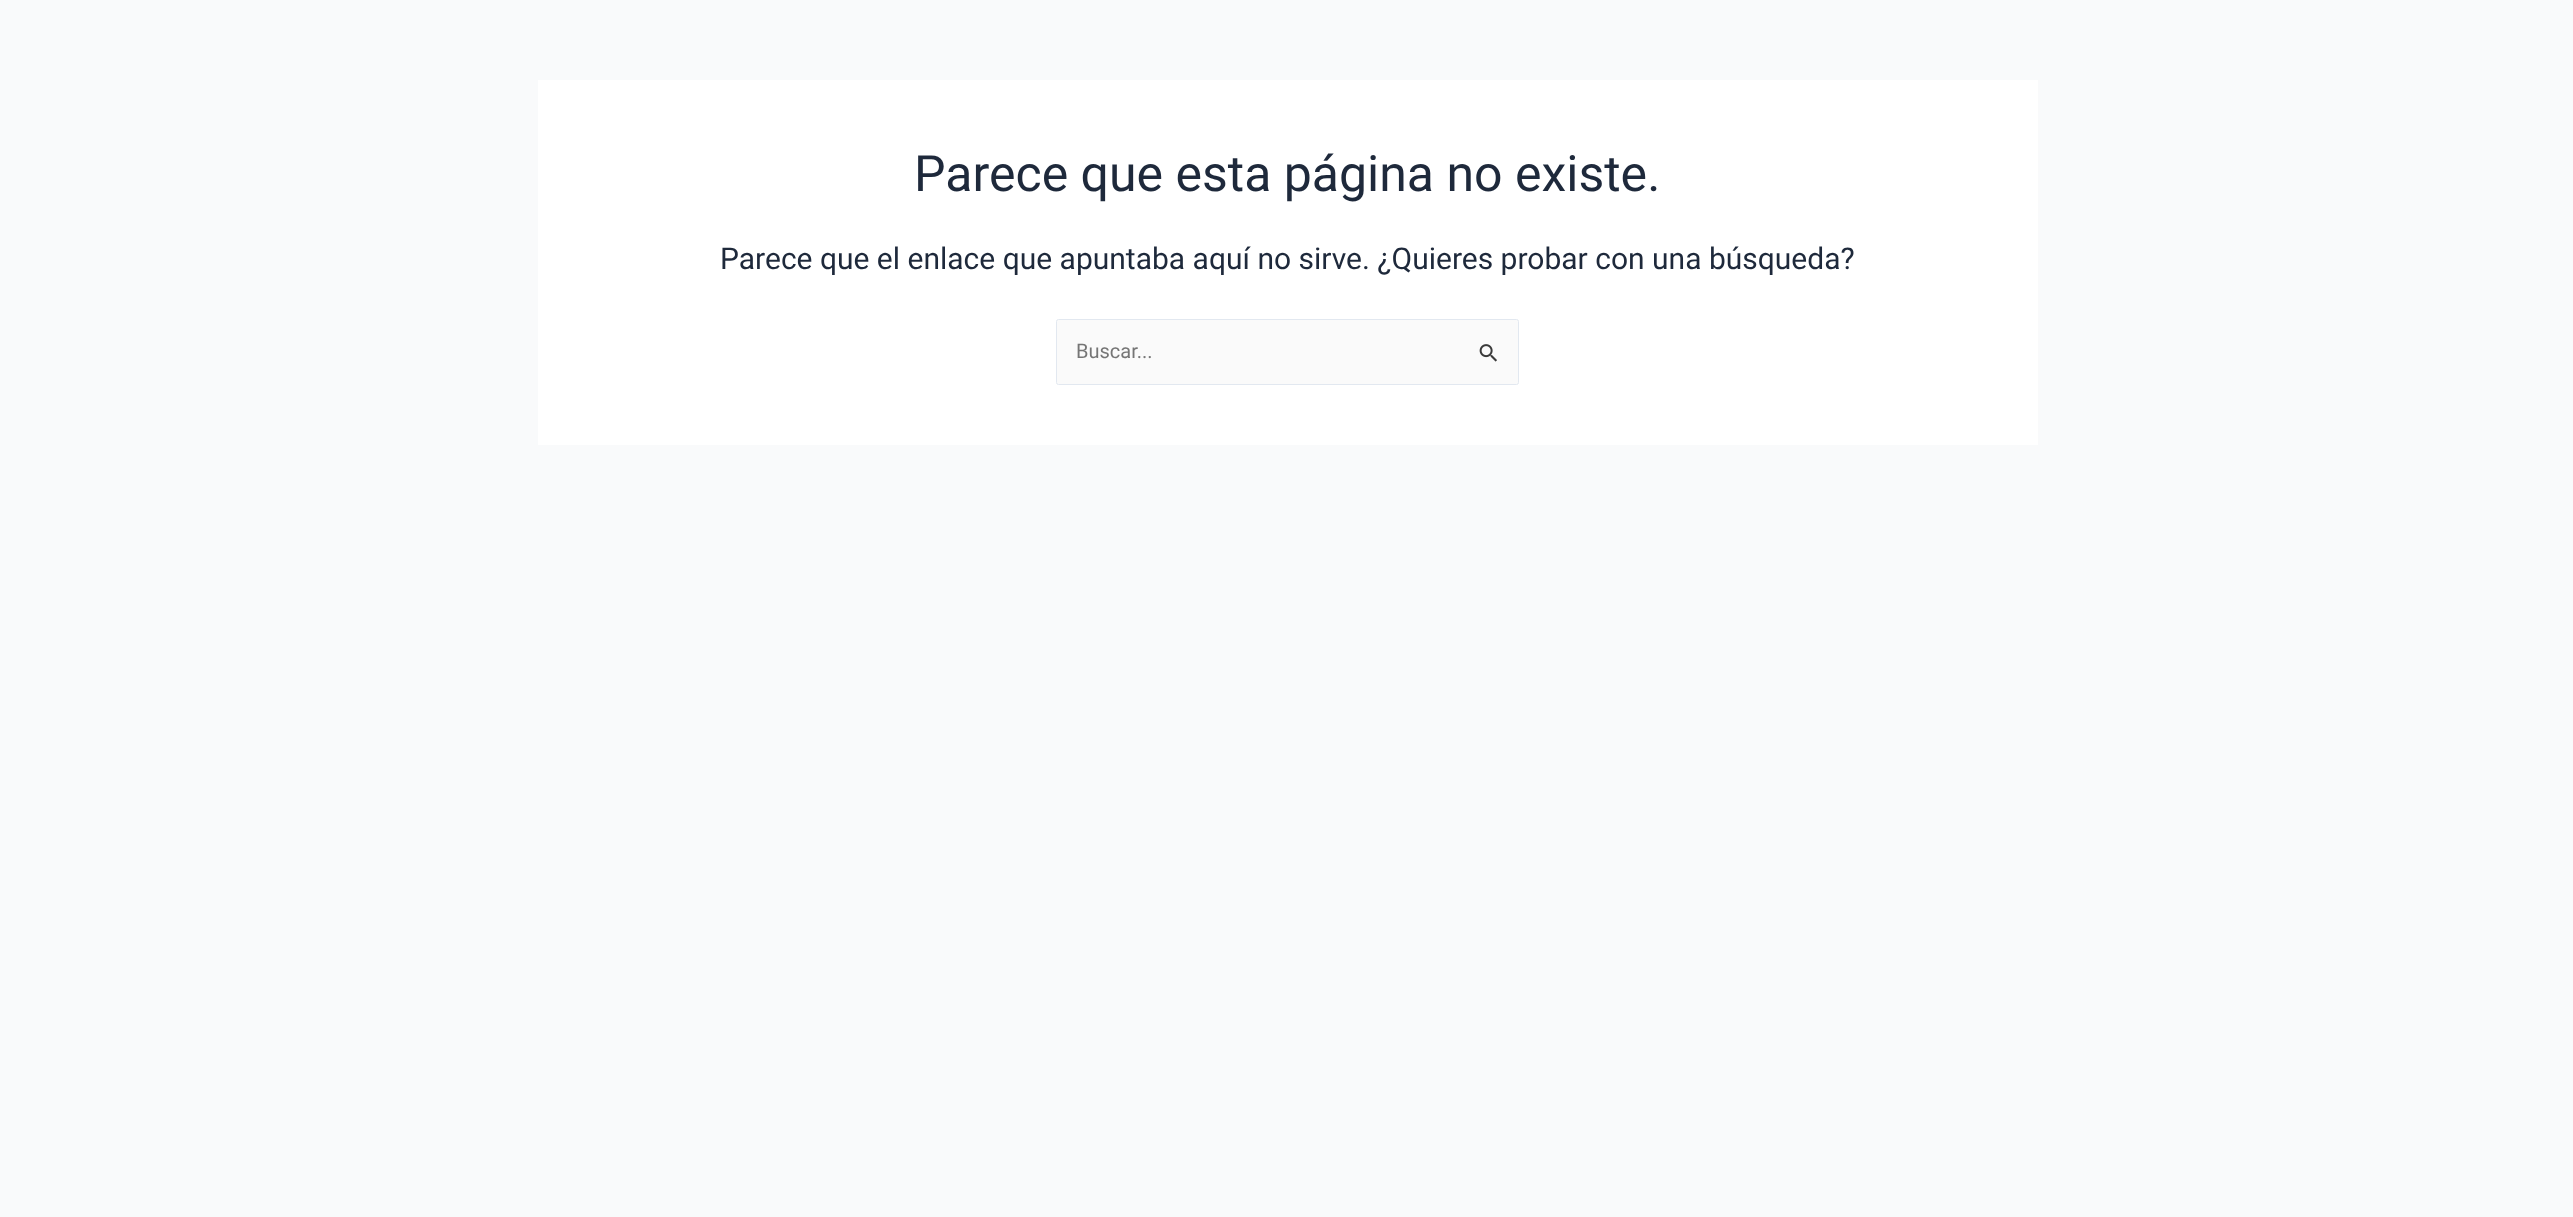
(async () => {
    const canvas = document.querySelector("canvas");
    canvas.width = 2573;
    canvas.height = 1217;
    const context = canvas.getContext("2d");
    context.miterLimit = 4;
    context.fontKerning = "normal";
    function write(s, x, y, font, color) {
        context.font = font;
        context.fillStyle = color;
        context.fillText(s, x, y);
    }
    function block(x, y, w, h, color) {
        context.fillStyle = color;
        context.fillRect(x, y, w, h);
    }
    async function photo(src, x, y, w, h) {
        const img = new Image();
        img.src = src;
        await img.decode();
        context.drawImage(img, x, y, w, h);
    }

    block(0, 0, 2573, 1217, "rgb(249, 250, 251)");
    block(538, 80, 1500, 365, "rgb(255, 255, 255)");
    write("Parece que esta página no existe.", 914, 191, "50px Roboto", "rgb(30, 41, 59)");
    write("Parece que el enlace que apuntaba aquí no sirve. ¿Quieres probar con una búsqueda?", 720, 269, "30px Roboto", "rgb(30, 41, 59)");
    context.fillStyle = "rgb(250, 250, 250)";
    context.beginPath();
    context.roundRect(1056.5, 319.5, 462, 65, 2);
    context.fill();
    context.strokeStyle = "rgb(226, 232, 240)";
    context.stroke();
    write("Buscar...", 1076, 358, "20px Roboto", "rgb(117, 117, 117)");
    await photo("media/1.png", 1479, 344, 18, 18);
})();
